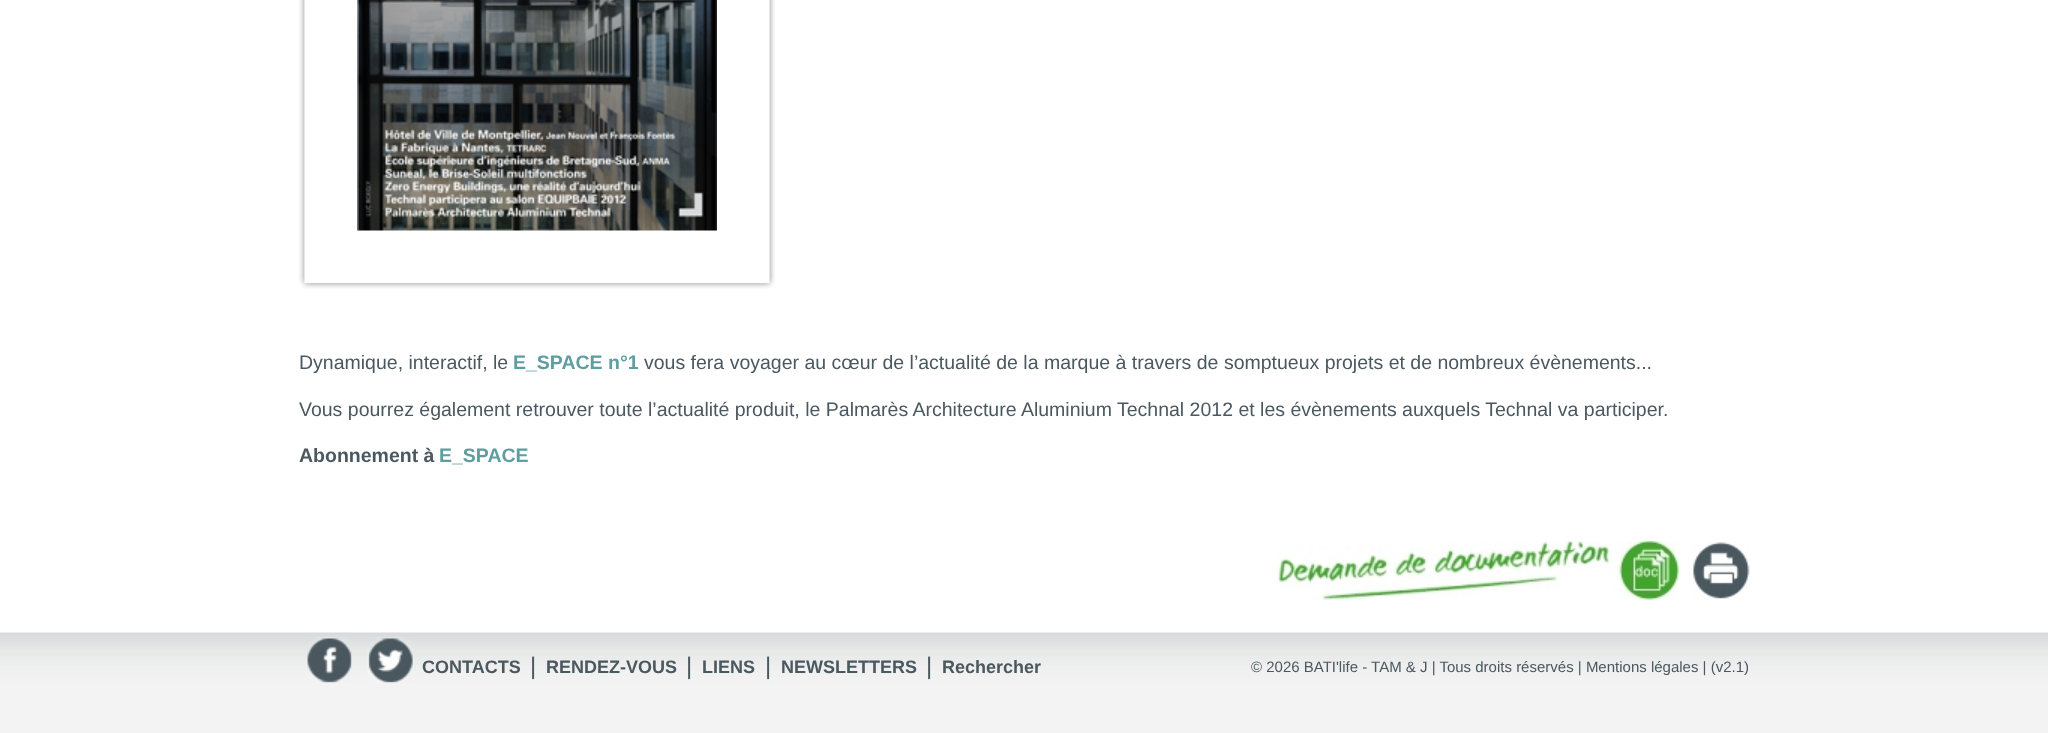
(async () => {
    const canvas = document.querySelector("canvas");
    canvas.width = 2048;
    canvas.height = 733;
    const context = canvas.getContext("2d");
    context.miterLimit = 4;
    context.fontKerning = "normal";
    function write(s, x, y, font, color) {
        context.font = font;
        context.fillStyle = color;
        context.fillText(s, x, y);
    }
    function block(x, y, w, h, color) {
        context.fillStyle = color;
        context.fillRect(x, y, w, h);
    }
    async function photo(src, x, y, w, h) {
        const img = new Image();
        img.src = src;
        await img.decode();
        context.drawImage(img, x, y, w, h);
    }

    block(0, 0, 2048, 733, "rgb(255, 255, 255)");
    await photo("media/1.png", 298, 0, 7, 283);
    await photo("media/2.png", 357, 0, 360, 231);
    await photo("media/3.png", 769, 0, 6, 283);
    await photo("media/4.png", 300, 283, 474, 6);
    write("Dynamique, interactif, le", 299, 369, "19.5px Liberation Sans", "rgb(74, 88, 95)");
    write("E_SPACE n°1", 513, 369, "bold 19.5px Liberation Sans", "rgb(95, 158, 160)");
    write("vous fera voyager au cœur de l’actualité de la marque à travers de somptueux projets et de nombreux évènements...", 644, 369, "19.5px Liberation Sans", "rgb(74, 88, 95)");
    write("Vous pourrez également retrouver toute l’actualité produit, le Palmarès Architecture Aluminium Technal 2012 et les évènements auxquels Technal va participer.", 299, 416, "19.5px Liberation Sans", "rgb(74, 88, 95)");
    write("Abonnement à", 299, 462, "bold 19.5px Liberation Sans", "rgb(74, 88, 95)");
    write("E_SPACE", 439, 462, "bold 19.5px Liberation Sans", "rgb(95, 158, 160)");
    await photo("media/5.png", 1277, 541, 402, 59);
    await photo("media/6.png", 1692, 542, 58, 57);
    await photo("media/7.png", 0, 632, 2048, 101);
    await photo("media/8.png", 306, 637, 46, 46);
    await photo("media/9.png", 367, 637, 47, 46);
    write("CONTACTS", 422, 673, "bold 18px Liberation Sans", "rgb(74, 88, 95)");
    write("|", 530, 674, "24px Liberation Sans", "rgb(74, 88, 95)");
    write("RENDEZ-VOUS", 546, 673, "bold 18px Liberation Sans", "rgb(74, 88, 95)");
    write("|", 686, 674, "24px Liberation Sans", "rgb(74, 88, 95)");
    write("LIENS", 702, 673, "bold 18px Liberation Sans", "rgb(74, 88, 95)");
    write("|", 765, 674, "24px Liberation Sans", "rgb(74, 88, 95)");
    write("NEWSLETTERS", 781, 673, "bold 18px Liberation Sans", "rgb(74, 88, 95)");
    write("|", 926, 674, "24px Liberation Sans", "rgb(74, 88, 95)");
    write("Rechercher", 942, 673, "bold 18px Liberation Sans", "rgb(74, 88, 95)");
    write("© 2026 BATI'life - TAM & J | Tous droits réservés | Mentions légales | (v2.1)", 1251, 672, "15px Liberation Sans", "rgb(74, 88, 95)");
})();
